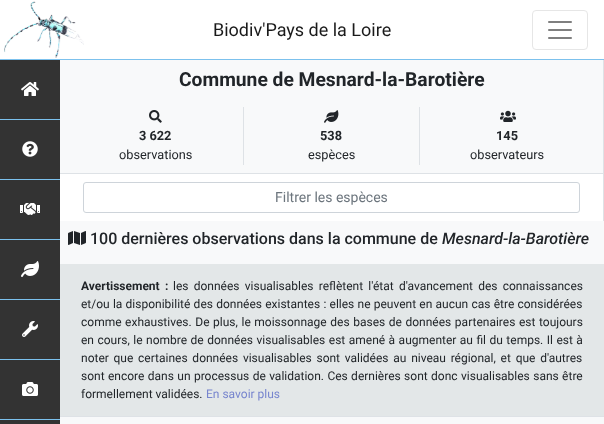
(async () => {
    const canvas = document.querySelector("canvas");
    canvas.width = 604;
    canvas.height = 424;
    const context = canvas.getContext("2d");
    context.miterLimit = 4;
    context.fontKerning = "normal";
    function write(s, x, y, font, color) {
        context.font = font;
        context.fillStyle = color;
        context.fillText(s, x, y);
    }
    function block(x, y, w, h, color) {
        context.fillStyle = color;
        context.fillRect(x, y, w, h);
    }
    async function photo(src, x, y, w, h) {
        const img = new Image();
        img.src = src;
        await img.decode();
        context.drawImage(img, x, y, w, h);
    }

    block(0, 0, 604, 424, "rgb(227, 231, 232)");
    block(0, 0, 604, 59, "rgb(255, 255, 255)");
    block(0, 59, 604, 1, "rgb(124, 193, 237)");
    await photo("media/1.png", 4, 1, 80, 57);
    write("Biodiv'Pays de la Loire", 213, 36, "18px Roboto", "rgb(26, 26, 26)");
    context.beginPath();
    context.roundRect(532.5, 10.5, 55, 39, 3.5);
    context.strokeStyle = "rgb(230, 230, 230)";
    context.stroke();
    await photo("media/2.png", 548, 21, 24, 18);
    block(0, 60, 60, 364, "rgb(51, 51, 51)");
    block(0, 119, 60, 1, "rgb(124, 193, 237)");
    await photo("media/3.png", 21, 82, 18, 14);
    block(0, 179, 60, 1, "rgb(124, 193, 237)");
    await photo("media/4.png", 22, 141, 16, 16);
    block(0, 239, 60, 1, "rgb(124, 193, 237)");
    await photo("media/5.png", 20, 203, 20, 12);
    block(0, 299, 60, 1, "rgb(124, 193, 237)");
    await photo("media/6.png", 21, 261, 18, 16);
    block(0, 359, 60, 1, "rgb(124, 193, 237)");
    await photo("media/7.png", 22, 321, 16, 16);
    block(0, 419, 60, 1, "rgb(124, 193, 237)");
    await photo("media/8.png", 22, 382, 16, 14);
    block(60, 416, 544, 1, "rgb(222, 226, 230)");
    block(60, 60, 543, 113, "rgb(248, 249, 250)");
    block(603, 60, 1, 161, "rgb(222, 226, 230)");
    block(60, 173, 544, 1, "rgb(222, 226, 230)");
    write("Commune de Mesnard-la-Barotière", 179, 86, "bold 19.25px Roboto", "rgb(33, 37, 41)");
    block(243, 107, 1, 58, "rgb(222, 226, 230)");
    await photo("media/9.png", 149, 110, 13, 13);
    write("3 622", 139, 140, "bold 12.75px Roboto", "rgb(33, 37, 41)");
    write("observations", 119, 159, "12.75px Roboto", "rgb(33, 37, 41)");
    block(419, 107, 1, 58, "rgb(222, 226, 230)");
    await photo("media/10.png", 324, 110, 15, 13);
    write("538", 320, 140, "bold 12.75px Roboto", "rgb(33, 37, 41)");
    write("espèces", 308, 159, "12.75px Roboto", "rgb(33, 37, 41)");
    await photo("media/11.png", 500, 110, 16, 12);
    write("145", 496, 140, "bold 12.75px Roboto", "rgb(33, 37, 41)");
    write("observateurs", 470, 159, "12.75px Roboto", "rgb(33, 37, 41)");
    block(60, 174, 543, 47, "rgb(255, 255, 255)");
    context.beginPath();
    context.roundRect(83.5, 182.5, 496, 30, 2.5);
    context.strokeStyle = "rgb(206, 212, 218)";
    context.stroke();
    write("Filtrer les espèces", 275, 202, "14px Roboto", "rgb(108, 117, 125)");
    block(60, 221, 544, 43, "rgb(248, 249, 250)");
    await photo("media/12.png", 68, 231, 18, 14);
    write("100 dernières observations dans la commune de", 90, 244, "500 16px Roboto", "rgb(33, 37, 41)");
    write("Mesnard-la-Barotière", 442, 244, "italic 500 16px Roboto", "rgb(33, 37, 41)");
    context.wordSpacing = "2.25px";
    write("Avertissement :", 81, 290, "bold 12px Roboto", "rgb(33, 37, 41)");
    write("les données visualisables reflètent l'état d'avancement des connaissances", 173, 290, "12px Roboto", "rgb(33, 37, 41)");
    context.wordSpacing = "0.25px";
    write("et/ou la disponibilité des données existantes : elles ne peuvent en aucun cas être considérées", 81, 308, "12px Roboto", "rgb(33, 37, 41)");
    context.wordSpacing = "0.6px";
    write("comme exhaustives. De plus, le moissonnage des bases de données partenaires est toujours", 81, 326, "12px Roboto", "rgb(33, 37, 41)");
    context.wordSpacing = "0.5px";
    write("en cours, le nombre de données visualisables est amené à augmenter au fil du temps. Il est à", 81, 344, "12px Roboto", "rgb(33, 37, 41)");
    context.wordSpacing = "1.75px";
    write("noter que certaines données visualisables sont validées au niveau régional, et que d'autres", 81, 362, "12px Roboto", "rgb(33, 37, 41)");
    context.wordSpacing = "0.4px";
    write("sont encore dans un processus de validation. Ces dernières sont donc visualisables sans être", 81, 380, "12px Roboto", "rgb(33, 37, 41)");
    context.wordSpacing = "0px";
    write("formellement validées.", 81, 398, "12px Roboto", "rgb(33, 37, 41)");
    write("En savoir plus", 206, 398, "12px Roboto", "rgb(119, 133, 206)");
    block(60, 417, 544, 7, "rgb(248, 249, 250)");
})();
